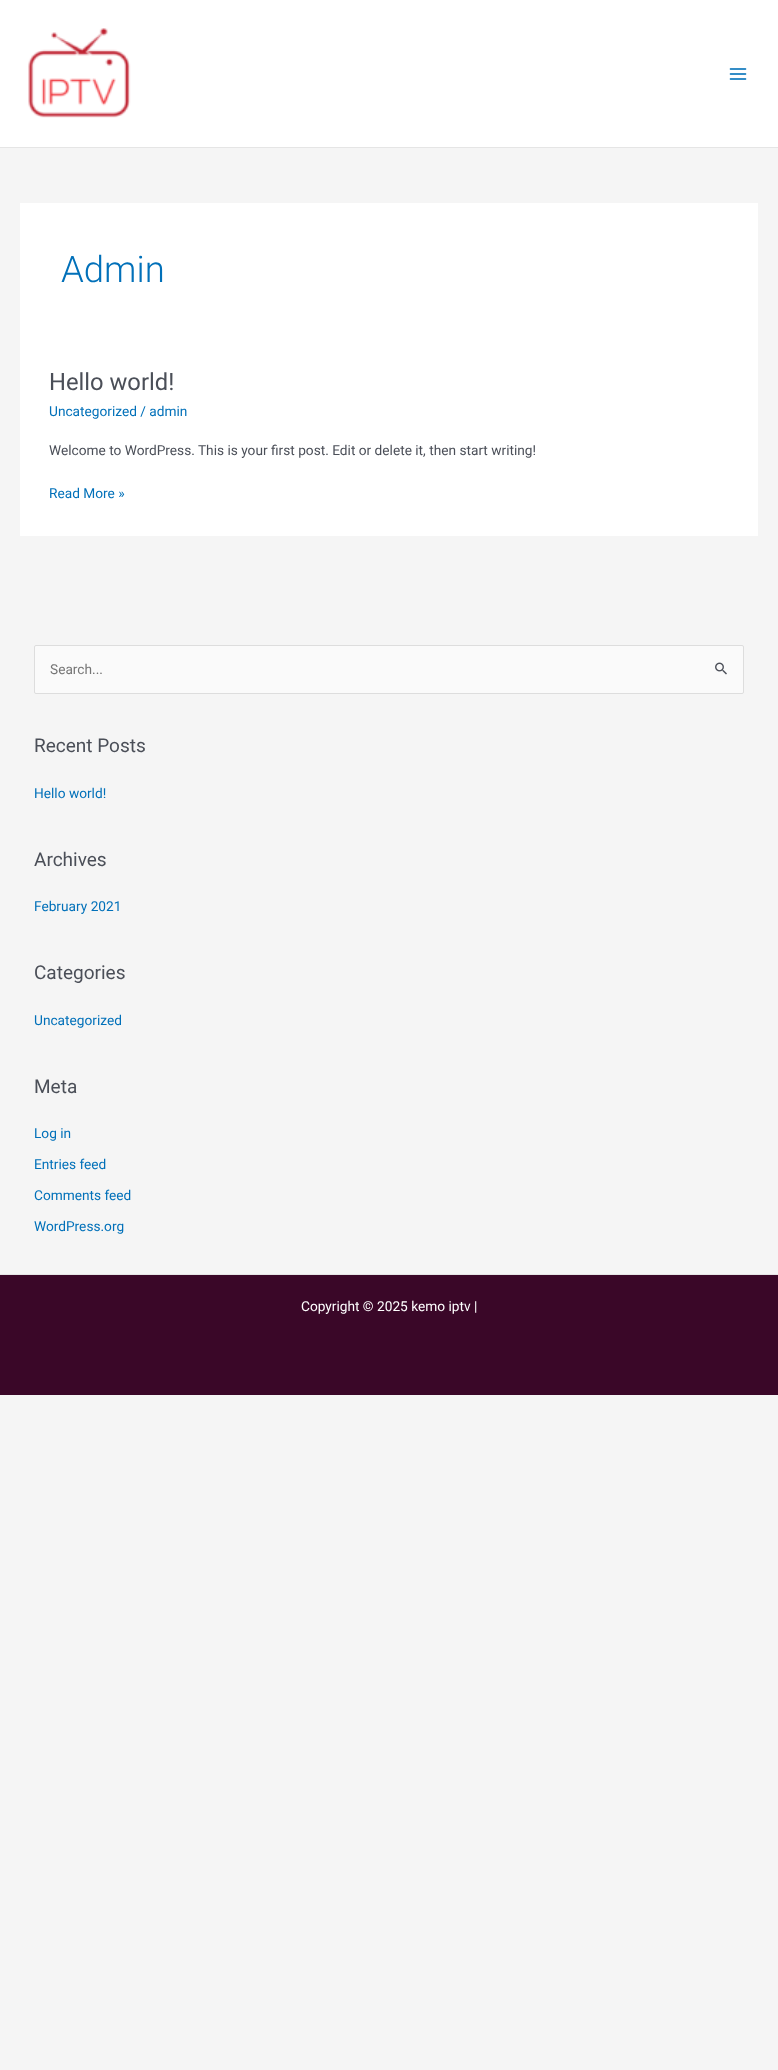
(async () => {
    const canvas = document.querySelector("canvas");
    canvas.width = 778;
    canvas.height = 2070;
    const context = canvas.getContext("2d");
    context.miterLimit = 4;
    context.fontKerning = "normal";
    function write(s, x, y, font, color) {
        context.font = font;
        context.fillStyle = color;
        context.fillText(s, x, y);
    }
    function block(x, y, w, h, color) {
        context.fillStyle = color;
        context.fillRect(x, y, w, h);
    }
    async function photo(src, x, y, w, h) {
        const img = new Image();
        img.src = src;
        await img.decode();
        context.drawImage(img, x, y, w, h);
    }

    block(0, 0, 778, 2070, "rgb(245, 245, 245)");
    block(0, 0, 778, 147, "rgb(255, 255, 255)");
    block(0, 147, 778, 1, "rgb(229, 229, 229)");
    await photo("media/1.png", 28, 28, 103, 90);
    await photo("media/2.png", 729, 68, 18, 12);
    block(20, 203, 738, 333, "rgb(255, 255, 255)");
    write("Admin", 61, 282, "300 36.5px Roboto", "rgb(1, 112, 185)");
    write("Hello world!", 49, 390, "23.75px Roboto", "rgb(75, 79, 88)");
    write("Uncategorized / admin", 49, 416, "13.7px Roboto", "rgb(1, 112, 185)");
    write("Welcome to WordPress. This is your first post. Edit or delete it, then start writing!", 49, 455, "13.7px Roboto", "rgb(75, 79, 88)");
    write("Read More »", 49, 498, "13.7px Roboto", "rgb(1, 112, 185)");
    context.fillStyle = "rgb(250, 250, 250)";
    context.beginPath();
    context.roundRect(34.5, 645.5, 709, 48, 1.5);
    context.fill();
    context.strokeStyle = "rgb(221, 221, 221)";
    context.stroke();
    write("Search...", 50, 674, "13.7px Roboto", "rgb(117, 117, 117)");
    await photo("media/3.png", 715, 662, 12, 13);
    write("Recent Posts", 34, 752, "19px Roboto", "rgb(75, 79, 88)");
    write("Hello world!", 34, 798, "13.7px Roboto", "rgb(1, 112, 185)");
    write("Archives", 34, 866, "19px Roboto", "rgb(75, 79, 88)");
    write("February 2021", 34, 911, "13.7px Roboto", "rgb(1, 112, 185)");
    write("Categories", 34, 979, "19px Roboto", "rgb(75, 79, 88)");
    write("Uncategorized", 34, 1025, "13.7px Roboto", "rgb(1, 112, 185)");
    write("Meta", 34, 1093, "19px Roboto", "rgb(75, 79, 88)");
    write("Log in", 34, 1138, "13.7px Roboto", "rgb(1, 112, 185)");
    write("Entries feed", 34, 1169, "13.7px Roboto", "rgb(1, 112, 185)");
    write("Comments feed", 34, 1200, "13.7px Roboto", "rgb(1, 112, 185)");
    write("WordPress.org", 34, 1231, "13.7px Roboto", "rgb(1, 112, 185)");
    block(0, 1275, 778, 120, "rgb(58, 7, 40)");
    block(0, 1274, 778, 1, "rgb(229, 229, 229)");
    write("Copyright © 2025 kemo iptv |", 301, 1311, "13.7px Roboto", "rgb(255, 255, 255)");
})();
